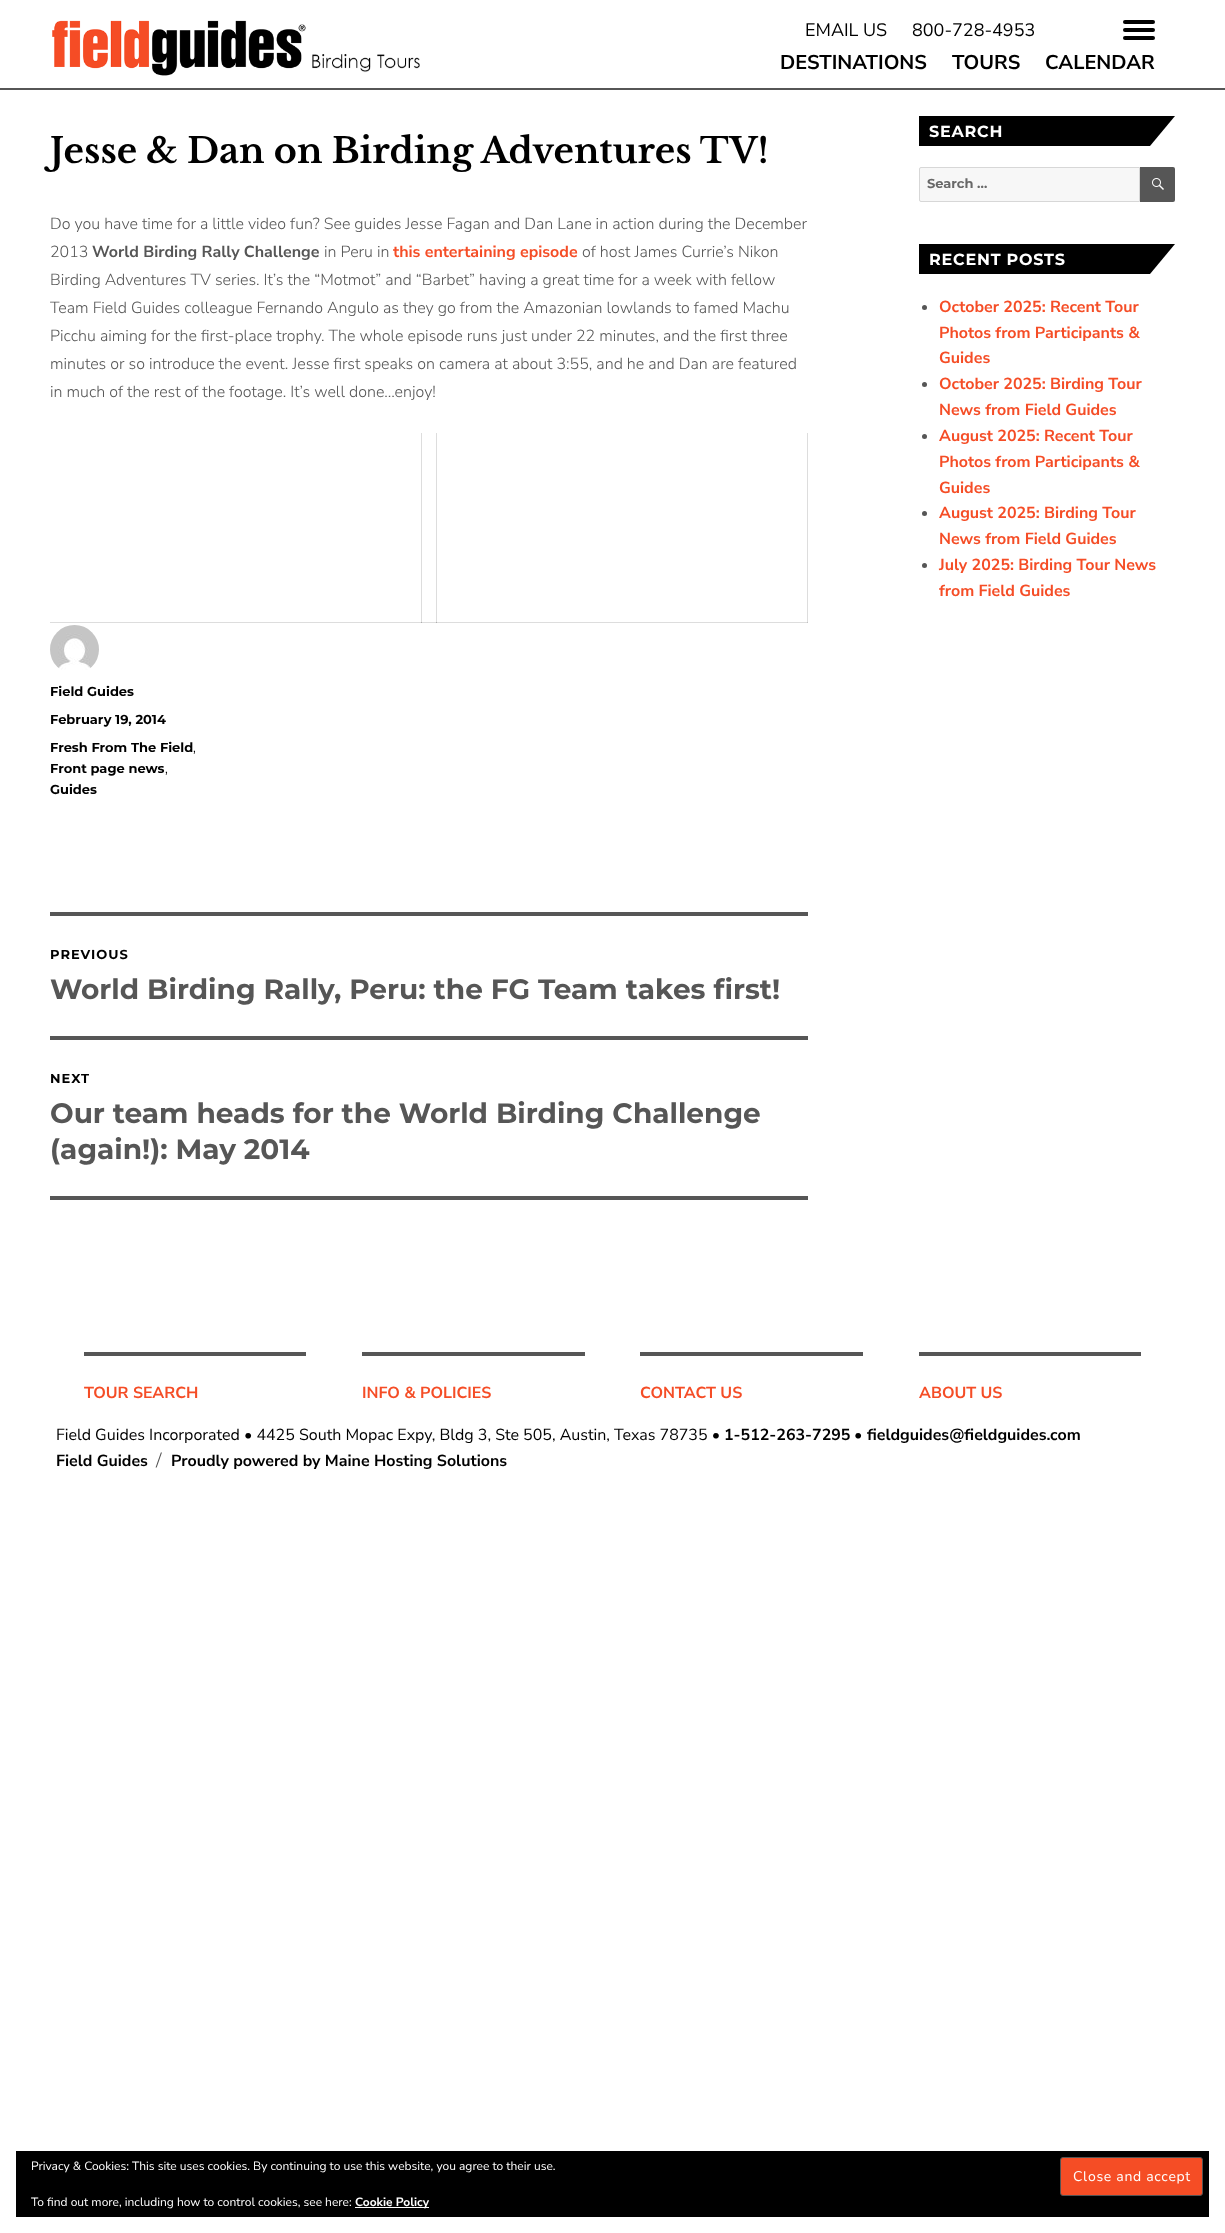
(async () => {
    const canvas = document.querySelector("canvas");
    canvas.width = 1225;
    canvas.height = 2233;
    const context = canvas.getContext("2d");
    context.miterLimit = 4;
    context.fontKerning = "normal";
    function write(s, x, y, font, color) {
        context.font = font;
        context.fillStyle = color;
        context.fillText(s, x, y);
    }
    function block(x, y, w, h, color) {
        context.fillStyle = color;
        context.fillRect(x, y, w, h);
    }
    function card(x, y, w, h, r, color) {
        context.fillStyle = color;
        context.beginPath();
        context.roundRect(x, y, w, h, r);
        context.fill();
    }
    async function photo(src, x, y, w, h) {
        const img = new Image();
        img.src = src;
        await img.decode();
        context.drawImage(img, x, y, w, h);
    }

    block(0, 0, 1225, 2233, "rgb(255, 255, 255)");
    block(50, 622, 372, 1, "rgb(221, 221, 221)");
    block(421, 433, 1, 190, "rgb(221, 221, 221)");
    block(421, 622, 16, 1, "rgb(221, 221, 221)");
    block(421, 622, 1, 1, "rgb(172, 172, 172)");
    block(436, 433, 1, 190, "rgb(221, 221, 221)");
    block(436, 622, 372, 1, "rgb(221, 221, 221)");
    block(436, 622, 1, 1, "rgb(172, 172, 172)");
    block(0, 88, 1225, 2, "rgb(86, 86, 86)");
    await photo("media/1.png", 52, 20, 254, 56);
    write("EMAIL US", 805, 36, "18px Nunito Sans", "rgb(0, 0, 0)");
    write("800-728-4953", 912, 36, "18px Nunito Sans", "rgb(0, 0, 0)");
    card(1123, 20, 32, 4, 2, "rgb(0, 0, 0)");
    card(1123, 28, 32, 4, 2, "rgb(0, 0, 0)");
    card(1123, 36, 32, 4, 2, "rgb(0, 0, 0)");
    await photo("media/2.png", 312, 54, 108, 19);
    write("DESTINATIONS", 780, 69, "bold 20px Nunito Sans", "rgb(0, 0, 0)");
    write("TOURS", 952, 69, "bold 20px Nunito Sans", "rgb(0, 0, 0)");
    write("CALENDAR", 1045, 69, "bold 20px Nunito Sans", "rgb(0, 0, 0)");
    write("Jesse & Dan on Birding Adventures TV!", 50, 163, "bold 35px Libre Baskerville", "rgb(0, 0, 0)");
    write("Do you have time for a little video fun? See guides Jesse Fagan and Dan Lane in action during the December", 50, 229, "300 16px Nunito Sans", "rgb(86, 86, 86)");
    write("2013", 50, 257, "300 16px Nunito Sans", "rgb(86, 86, 86)");
    write("World Birding Rally Challenge", 92, 257, "bold 16px Nunito Sans", "rgb(86, 86, 86)");
    write("in Peru in", 324, 257, "300 16px Nunito Sans", "rgb(86, 86, 86)");
    write("this entertaining episode", 393, 257, "bold 16px Nunito Sans", "rgb(245, 77, 38)");
    write("of host James Currie’s Nikon", 582, 257, "300 16px Nunito Sans", "rgb(86, 86, 86)");
    write("Birding Adventures TV series. It’s the “Motmot” and “Barbet” having a great time for a week with fellow", 50, 285, "300 16px Nunito Sans", "rgb(86, 86, 86)");
    write("Team Field Guides colleague Fernando Angulo as they go from the Amazonian lowlands to famed Machu", 50, 313, "300 16px Nunito Sans", "rgb(86, 86, 86)");
    write("Picchu aiming for the first-place trophy. The whole episode runs just under 22 minutes, and the first three", 50, 341, "300 16px Nunito Sans", "rgb(86, 86, 86)");
    write("minutes or so introduce the event. Jesse first speaks on camera at about 3:55, and he and Dan are featured", 50, 369, "300 16px Nunito Sans", "rgb(86, 86, 86)");
    write("in much of the rest of the footage. It’s well done…enjoy!", 50, 397, "300 16px Nunito Sans", "rgb(86, 86, 86)");
    block(807, 433, 1, 190, "rgb(221, 221, 221)");
    block(807, 622, 1, 1, "rgb(194, 194, 194)");
    await photo("media/3.png", 50, 625, 49, 45);
    write("Field Guides", 50, 696, "100 13px Montserrat", "rgb(0, 0, 0)");
    write("February 19, 2014", 50, 724, "100 13px Montserrat", "rgb(0, 0, 0)");
    write("Fresh From The Field", 50, 752, "100 13px Montserrat", "rgb(0, 0, 0)");
    write(",", 193, 752, "100 13px 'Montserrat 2'", "rgb(0, 0, 0)");
    write("Front page news", 50, 773, "100 13px Montserrat", "rgb(0, 0, 0)");
    write(",", 165, 773, "100 13px 'Montserrat 2'", "rgb(0, 0, 0)");
    write("Guides", 50, 794, "100 13px Montserrat", "rgb(0, 0, 0)");
    block(50, 912, 758, 4, "rgb(86, 86, 86)");
    block(50, 1196, 758, 4, "rgb(86, 86, 86)");
    context.letterSpacing = "1px";
    write("PREVIOUS", 50, 959, "100 13px Montserrat", "rgb(0, 0, 0)");
    context.letterSpacing = "0px";
    write("World Birding Rally, Peru: the FG Team takes first!", 50, 999, "100 28px Montserrat", "rgb(86, 86, 86)");
    block(50, 1036, 758, 4, "rgb(86, 86, 86)");
    context.letterSpacing = "1px";
    write("NEXT", 50, 1083, "100 13px Montserrat", "rgb(0, 0, 0)");
    context.letterSpacing = "0px";
    write("Our team heads for the World Birding Challenge", 50, 1123, "100 28px Montserrat", "rgb(86, 86, 86)");
    write("(again!): May 2014", 50, 1159, "100 28px Montserrat", "rgb(86, 86, 86)");
    context.fillStyle = "rgb(0, 0, 0)";
    context.beginPath();
    context.moveTo(919, 116);
    context.lineTo(1175, 116);
    context.lineTo(1150, 146);
    context.lineTo(919, 146);
    context.closePath();
    context.fill();
    context.letterSpacing = "0.75px";
    write("SEARCH", 929, 137, "100 16px Montserrat", "rgb(255, 255, 255)");
    context.fillStyle = "rgb(247, 247, 247)";
    context.beginPath();
    context.roundRect(919.5, 167.5, 220, 34, [1.5, 0, 0, 1.5]);
    context.fill();
    context.strokeStyle = "rgb(215, 215, 215)";
    context.stroke();
    context.letterSpacing = "0px";
    write("Search …", 927, 188, "100 13px Montserrat", "rgb(104, 104, 104)");
    context.fillStyle = "rgb(86, 86, 86)";
    context.beginPath();
    context.roundRect(1140, 167, 35, 35, [0, 2, 2, 0]);
    context.fill();
    await photo("media/4.png", 1152, 178, 12, 12);
    context.fillStyle = "rgb(0, 0, 0)";
    context.beginPath();
    context.moveTo(919, 244);
    context.lineTo(1175, 244);
    context.lineTo(1150, 274);
    context.lineTo(919, 274);
    context.closePath();
    context.fill();
    context.letterSpacing = "0.75px";
    write("RECENT POSTS", 929, 265, "100 16px Montserrat", "rgb(255, 255, 255)");
    context.fillStyle = "rgb(86, 86, 86)";
    context.beginPath();
    context.arc(924.5, 307.5, 2.5, 0, Math.PI * 2);
    context.fill();
    context.letterSpacing = "0px";
    write("October 2025: Recent Tour", 939, 312, "bold 16px Nunito Sans", "rgb(245, 77, 38)");
    write("Photos from Participants &", 939, 338, "bold 16px Nunito Sans", "rgb(245, 77, 38)");
    write("Guides", 939, 363, "bold 16px Nunito Sans", "rgb(245, 77, 38)");
    context.fillStyle = "rgb(86, 86, 86)";
    context.beginPath();
    context.arc(924.5, 384.5, 2.5, 0, Math.PI * 2);
    context.fill();
    write("October 2025: Birding Tour", 939, 389, "bold 16px Nunito Sans", "rgb(245, 77, 38)");
    write("News from Field Guides", 939, 415, "bold 16px Nunito Sans", "rgb(245, 77, 38)");
    context.fillStyle = "rgb(86, 86, 86)";
    context.beginPath();
    context.arc(924.5, 436.5, 2.5, 0, Math.PI * 2);
    context.fill();
    write("August 2025: Recent Tour", 939, 441, "bold 16px Nunito Sans", "rgb(245, 77, 38)");
    write("Photos from Participants &", 939, 467, "bold 16px Nunito Sans", "rgb(245, 77, 38)");
    write("Guides", 939, 493, "bold 16px Nunito Sans", "rgb(245, 77, 38)");
    context.fillStyle = "rgb(86, 86, 86)";
    context.beginPath();
    context.arc(924.5, 513.5, 2.5, 0, Math.PI * 2);
    context.fill();
    write("August 2025: Birding Tour", 939, 518, "bold 16px Nunito Sans", "rgb(245, 77, 38)");
    write("News from Field Guides", 939, 544, "bold 16px Nunito Sans", "rgb(245, 77, 38)");
    context.fillStyle = "rgb(86, 86, 86)";
    context.beginPath();
    context.arc(924.5, 565.5, 2.5, 0, Math.PI * 2);
    context.fill();
    write("July 2025: Birding Tour News", 939, 570, "bold 16px Nunito Sans", "rgb(245, 77, 38)");
    write("from Field Guides", 939, 596, "bold 16px Nunito Sans", "rgb(245, 77, 38)");
    block(84, 1352, 222, 4, "rgb(86, 86, 86)");
    write("TOUR SEARCH", 84, 1398, "bold 16px Nunito Sans", "rgb(245, 77, 38)");
    block(362, 1352, 223, 4, "rgb(86, 86, 86)");
    write("INFO & POLICIES", 362, 1398, "bold 16px Nunito Sans", "rgb(245, 77, 38)");
    block(640, 1352, 223, 4, "rgb(86, 86, 86)");
    write("CONTACT US", 640, 1398, "bold 16px Nunito Sans", "rgb(245, 77, 38)");
    block(919, 1352, 222, 4, "rgb(86, 86, 86)");
    write("ABOUT US", 919, 1398, "bold 16px Nunito Sans", "rgb(245, 77, 38)");
    write("Field Guides Incorporated • 4425 South Mopac Expy, Bldg 3, Ste 505, Austin, Texas 78735 •", 56, 1440, "16px Nunito Sans", "rgb(0, 0, 0)");
    write("1-512-263-7295", 724, 1440, "bold 16px Nunito Sans", "rgb(0, 0, 0)");
    write("•", 854, 1440, "16px Nunito Sans", "rgb(0, 0, 0)");
    write("fieldguides@fieldguides.com", 867, 1440, "bold 16px Nunito Sans", "rgb(0, 0, 0)");
    write("Field Guides", 56, 1466, "bold 16px Nunito Sans", "rgb(0, 0, 0)");
    write("/", 156, 1466, "100 16px 'Montserrat 2'", "rgb(77, 77, 77)");
    write("Proudly powered by Maine Hosting Solutions", 171, 1466, "bold 16px Nunito Sans", "rgb(0, 0, 0)");
    block(16, 2151, 1193, 66, "rgb(0, 0, 0)");
    write("Privacy & Cookies: This site uses cookies. By continuing to use this website, you agree to their use.", 31, 2170, "12px Nunito Sans", "rgb(255, 255, 255)");
    context.fillStyle = "rgb(245, 77, 37)";
    context.beginPath();
    context.roundRect(1060.5, 2157.5, 142, 38, 2.5);
    context.fill();
    context.strokeStyle = "rgb(83, 83, 83)";
    context.stroke();
    context.letterSpacing = "0.7px";
    write("Close and accept", 1073, 2181, "14px Nunito Sans", "rgb(255, 255, 255)");
    context.letterSpacing = "0px";
    write("To find out more, including how to control cookies, see here:", 31, 2206, "12px Nunito Sans", "rgb(255, 255, 255)");
    block(355, 2207, 74, 1, "rgb(255, 255, 255)");
    write("Cookie Policy", 355, 2206, "bold 12px Nunito Sans", "rgb(255, 255, 255)");
})();
